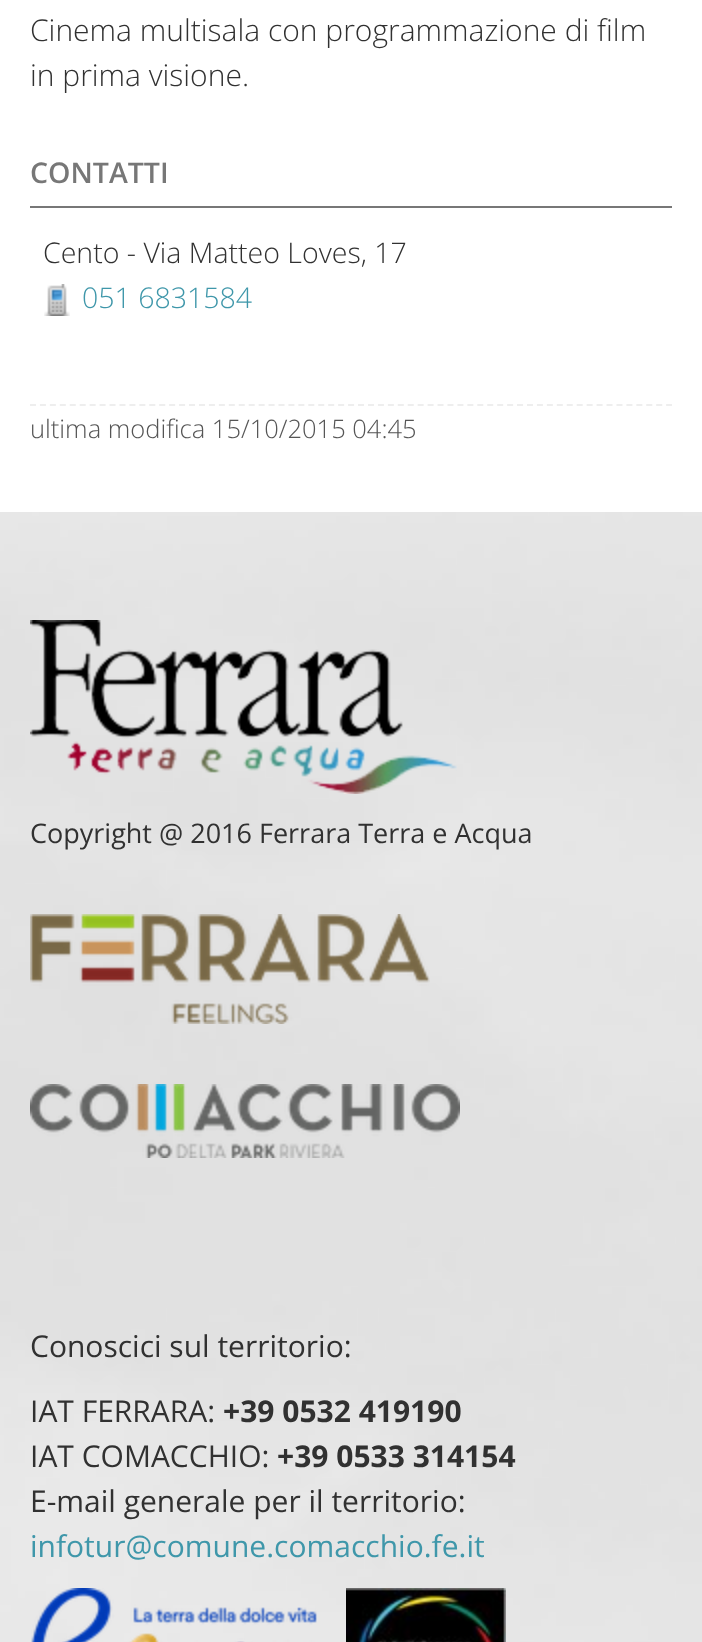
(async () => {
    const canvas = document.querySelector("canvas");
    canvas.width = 702;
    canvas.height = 1642;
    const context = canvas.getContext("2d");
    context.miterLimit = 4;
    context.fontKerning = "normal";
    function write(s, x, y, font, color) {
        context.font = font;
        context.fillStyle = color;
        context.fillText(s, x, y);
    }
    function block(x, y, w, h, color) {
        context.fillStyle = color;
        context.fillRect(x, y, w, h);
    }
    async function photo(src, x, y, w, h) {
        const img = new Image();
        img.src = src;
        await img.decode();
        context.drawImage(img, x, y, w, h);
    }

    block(0, 0, 702, 1642, "rgb(255, 255, 255)");
    context.beginPath();
    context.moveTo(30, 405);
    context.lineTo(672, 405);
    context.strokeStyle = "rgb(238, 238, 238)";
    context.lineWidth = 2;
    context.setLineDash([6, 3.94]);
    context.stroke();
    write("Cinema multisala con programmazione di film", 30, 41, "300 30px Open Sans", "rgb(49, 49, 49)");
    write("in prima visione.", 30, 86, "300 30px Open Sans", "rgb(49, 49, 49)");
    block(30, 206, 642, 2, "rgb(119, 119, 119)");
    write("CONTATTI", 30, 183, "600 28.5px Open Sans", "rgb(119, 119, 119)");
    write("Cento - Via Matteo Loves, 17", 43, 263, "300 28.5px Open Sans", "rgb(49, 49, 49)");
    await photo("media/1.png", 44, 284, 26, 32);
    write("051 6831584", 82, 308, "300 28.5px Open Sans", "rgb(63, 151, 170)");
    write("ultima modifica 15/10/2015 04:45", 30, 438, "300 25.5px Open Sans", "rgb(85, 85, 85)");
    await photo("media/2.png", 0, 512, 702, 1130);
    await photo("media/3.png", 30, 620, 427, 174);
    write("Copyright @ 2016 Ferrara Terra e Acqua", 30, 843, "27px Open Sans", "rgb(49, 49, 49)");
    await photo("media/4.png", 30, 914, 400, 110);
    await photo("media/5.png", 30, 1084, 430, 74);
    write("Conoscici sul territorio:", 30, 1357, "30px Open Sans", "rgb(49, 49, 49)");
    write("IAT FERRARA:", 30, 1422, "30px Open Sans", "rgb(49, 49, 49)");
    write("+39 0532 419190", 223, 1422, "bold 30px Open Sans", "rgb(49, 49, 49)");
    write("IAT COMACCHIO:", 30, 1467, "30px Open Sans", "rgb(49, 49, 49)");
    write("+39 0533 314154", 277, 1467, "bold 30px Open Sans", "rgb(49, 49, 49)");
    write("E-mail generale per il territorio:", 30, 1512, "30px Open Sans", "rgb(49, 49, 49)");
    write("infotur@comune.comacchio.fe.it", 30, 1557, "30px Open Sans", "rgb(63, 151, 170)");
    await photo("media/6.png", 31, 1588, 286, 54);
    await photo("media/7.png", 346, 1588, 160, 54);
})();
